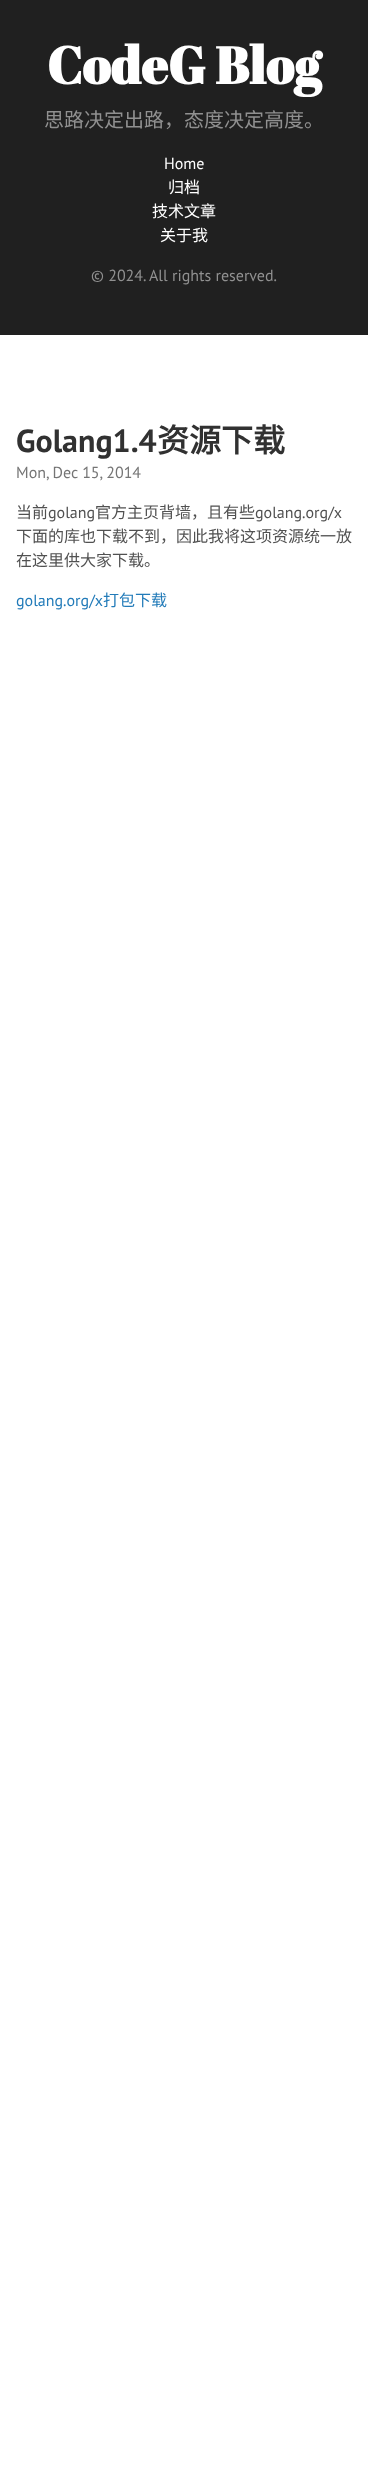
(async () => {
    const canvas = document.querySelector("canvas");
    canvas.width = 368;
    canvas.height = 2471;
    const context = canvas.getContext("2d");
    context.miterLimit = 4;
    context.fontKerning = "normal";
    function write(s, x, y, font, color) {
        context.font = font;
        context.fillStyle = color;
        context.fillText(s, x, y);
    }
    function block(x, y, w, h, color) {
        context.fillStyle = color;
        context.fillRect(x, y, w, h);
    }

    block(0, 0, 368, 2471, "rgb(255, 255, 255)");
    block(0, 0, 368, 335, "rgb(32, 32, 32)");
    write("CodeG Blog", 47, 84, "bold 52px Abril Fatface", "rgb(255, 255, 255)");
    write("思路决定出路，态度决定高度。", 44, 127, "20px Noto Sans CJK SC", "rgb(144, 144, 144)");
    write("Home", 164, 169, "16px PT Sans", "rgb(255, 255, 255)");
    write("归档", 168, 193, "16px Noto Sans CJK SC", "rgb(255, 255, 255)");
    write("技术文章", 152, 217, "16px Noto Sans CJK SC", "rgb(255, 255, 255)");
    write("关于我", 160, 241, "16px Noto Sans CJK SC", "rgb(255, 255, 255)");
    write("© 2024. All rights reserved.", 91, 281, "16px PT Sans", "rgb(144, 144, 144)");
    write("Golang1.4", 16, 452, "bold 32px PT Sans", "rgb(49, 49, 49)");
    write("资源下载", 157, 452, "bold 32px Noto Sans CJK SC", "rgb(49, 49, 49)");
    write("Mon, Dec 15, 2014", 16, 478, "16px PT Sans", "rgb(117, 117, 117)");
    write("当前", 16, 518, "16px Noto Sans CJK SC", "rgb(81, 81, 81)");
    write("golang", 48, 518, "16px PT Sans", "rgb(81, 81, 81)");
    write("官方主页背墙，且有些", 95, 518, "16px Noto Sans CJK SC", "rgb(81, 81, 81)");
    write("golang.org/x", 255, 518, "16px PT Sans", "rgb(81, 81, 81)");
    write("下面的库也下载不到，因此我将这项资源统一放", 16, 542, "16px Noto Sans CJK SC", "rgb(81, 81, 81)");
    write("在这里供大家下载。", 16, 566, "16px Noto Sans CJK SC", "rgb(81, 81, 81)");
    write("golang.org/x", 16, 606, "16px PT Sans", "rgb(34, 123, 185)");
    write("打包下载", 103, 606, "16px Noto Sans CJK SC", "rgb(34, 123, 185)");
})();
